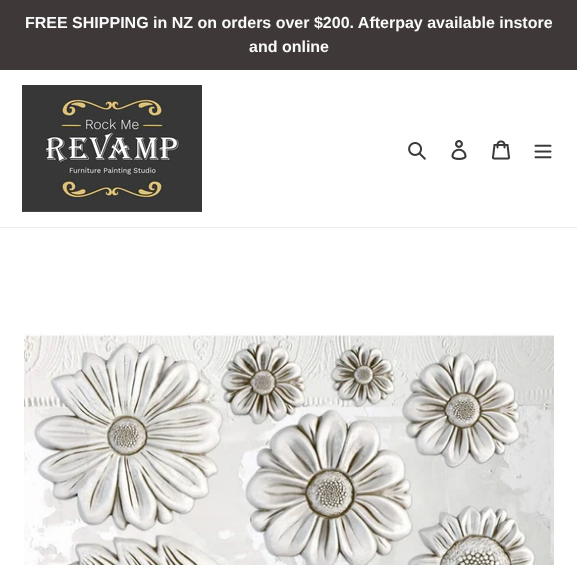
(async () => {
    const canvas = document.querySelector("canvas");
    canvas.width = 577;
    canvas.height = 565;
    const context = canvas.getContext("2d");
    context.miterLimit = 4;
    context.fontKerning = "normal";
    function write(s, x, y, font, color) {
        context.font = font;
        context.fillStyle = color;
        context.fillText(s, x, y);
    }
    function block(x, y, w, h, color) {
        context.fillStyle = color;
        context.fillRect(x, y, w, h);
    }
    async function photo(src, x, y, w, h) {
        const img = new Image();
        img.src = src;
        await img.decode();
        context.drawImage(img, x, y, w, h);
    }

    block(0, 0, 577, 565, "rgb(255, 255, 255)");
    block(0, 0, 577, 70, "rgb(62, 56, 56)");
    write("FREE SHIPPING in NZ on orders over $200. Afterpay available instore", 25, 28, "bold 16px Liberation Sans", "rgb(250, 250, 250)");
    write("and online", 249, 52, "bold 16px Liberation Sans", "rgb(250, 250, 250)");
    block(0, 227, 577, 1, "rgb(235, 235, 235)");
    await photo("media/1.png", 22, 85, 180, 127);
    await photo("media/2.png", 408, 142, 18, 18);
    await photo("media/3.png", 451, 140, 16, 20);
    await photo("media/4.png", 492, 140, 18, 20);
    await photo("media/5.png", 534, 144, 18, 15);
    await photo("media/6.png", 24, 333, 530, 232);
})();
